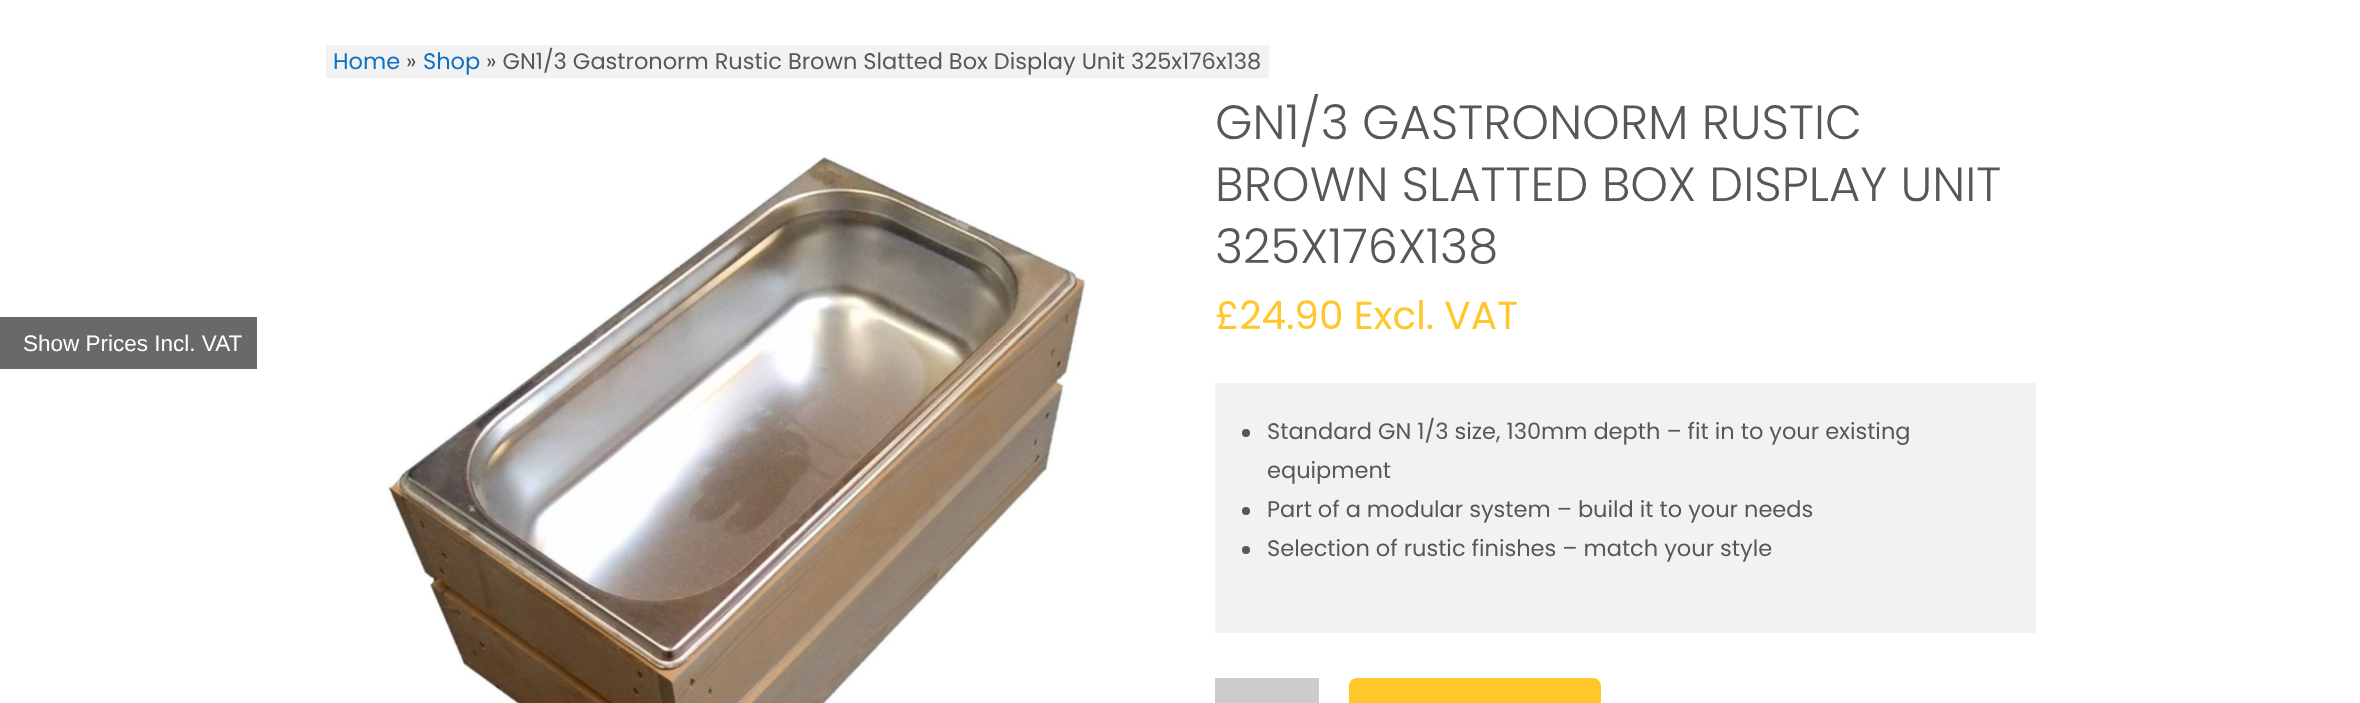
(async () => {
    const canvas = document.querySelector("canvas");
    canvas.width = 2360;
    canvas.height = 703;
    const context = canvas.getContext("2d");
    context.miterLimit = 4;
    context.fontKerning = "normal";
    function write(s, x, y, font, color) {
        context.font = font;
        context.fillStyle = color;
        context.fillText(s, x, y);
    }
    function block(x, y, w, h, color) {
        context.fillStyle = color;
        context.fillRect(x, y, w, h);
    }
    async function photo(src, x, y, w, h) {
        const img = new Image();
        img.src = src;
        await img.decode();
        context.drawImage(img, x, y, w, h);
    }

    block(0, 0, 2360, 703, "rgb(255, 255, 255)");
    block(0, 317, 257, 52, "rgb(105, 105, 105)");
    write("Show Prices Incl. VAT", 23, 351, "22.5px Liberation Sans", "rgb(255, 255, 255)");
    block(326, 45, 943, 33, "rgb(242, 242, 242)");
    write("Home", 333, 69, "22.5px Poppins", "rgb(12, 113, 195)");
    write("»", 406, 69, "22.5px Poppins", "rgb(87, 87, 87)");
    write("Shop", 423, 69, "22.5px Poppins", "rgb(12, 113, 195)");
    write("» GN1/3 Gastronorm Rustic Brown Slatted Box Display Unit 325x176x138", 486, 69, "22.5px Poppins", "rgb(87, 87, 87)");
    await photo("media/1.png", 387, 156, 699, 547);
    write("GN1/3 GASTRONORM RUSTIC", 1215, 139, "300 48px Poppins", "rgb(87, 87, 87)");
    write("BROWN SLATTED BOX DISPLAY UNIT", 1215, 201, "300 48px Poppins", "rgb(87, 87, 87)");
    write("325X176X138", 1215, 263, "300 48px Poppins", "rgb(87, 87, 87)");
    write("£24.90 Excl. VAT", 1215, 329, "39px Poppins", "rgb(255, 199, 44)");
    block(1215, 383, 821, 250, "rgb(242, 242, 242)");
    context.fillStyle = "rgb(87, 87, 87)";
    context.beginPath();
    context.arc(1246, 433, 4, 0, Math.PI * 2);
    context.fill();
    write("Standard GN 1/3 size, 130mm depth – fit in to your existing", 1267, 439, "22.5px Poppins", "rgb(87, 87, 87)");
    write("equipment", 1267, 478, "22.5px Poppins", "rgb(87, 87, 87)");
    context.beginPath();
    context.arc(1246, 511, 4, 0, Math.PI * 2);
    context.fill();
    write("Part of a modular system – build it to your needs", 1267, 517, "22.5px Poppins", "rgb(87, 87, 87)");
    context.beginPath();
    context.arc(1246, 550, 4, 0, Math.PI * 2);
    context.fill();
    write("Selection of rustic finishes – match your style", 1267, 556, "22.5px Poppins", "rgb(87, 87, 87)");
    block(1215, 678, 104, 25, "rgb(204, 204, 204)");
    context.fillStyle = "rgb(255, 199, 44)";
    context.beginPath();
    context.roundRect(1350.5, 679.5, 249, 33, 6.5);
    context.fill();
    context.strokeStyle = "rgb(255, 199, 44)";
    context.lineWidth = 3;
    context.stroke();
})();
